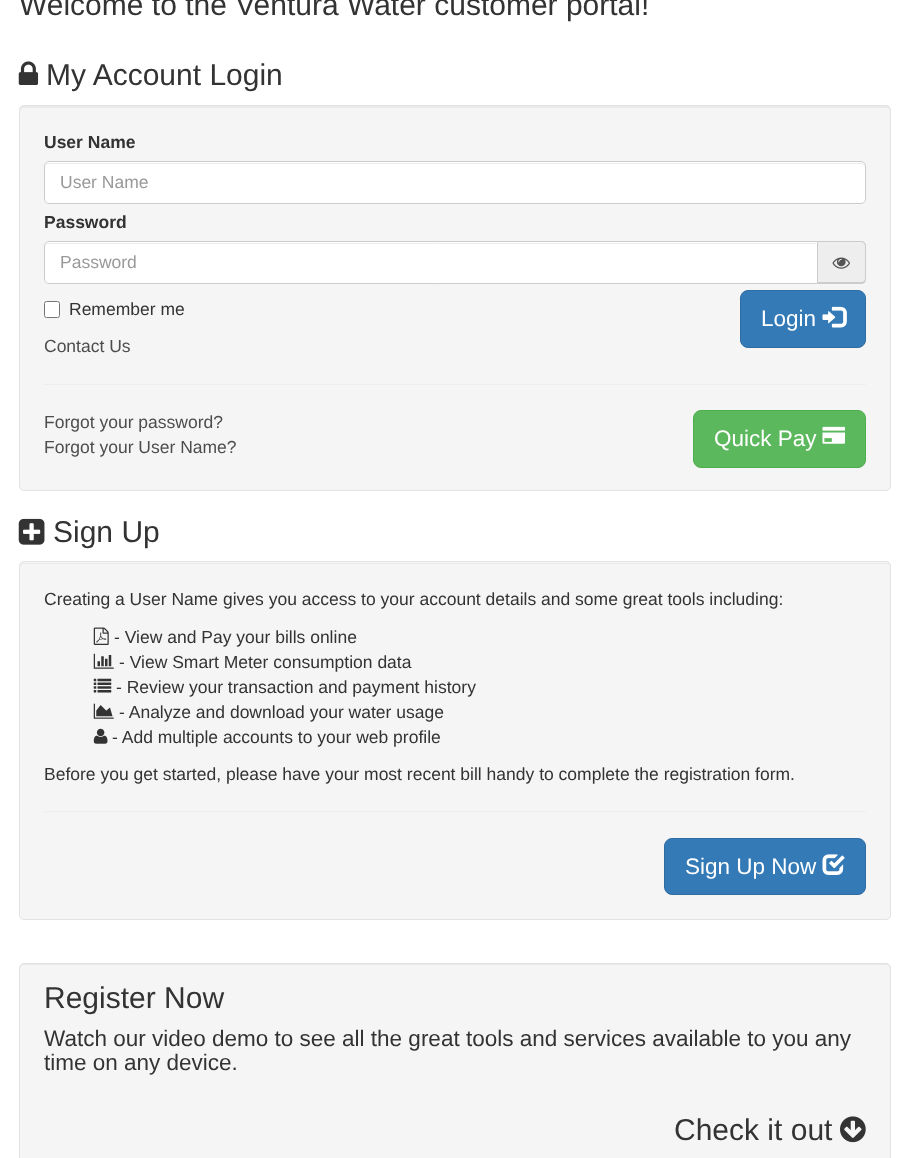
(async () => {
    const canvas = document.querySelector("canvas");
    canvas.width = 910;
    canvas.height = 1158;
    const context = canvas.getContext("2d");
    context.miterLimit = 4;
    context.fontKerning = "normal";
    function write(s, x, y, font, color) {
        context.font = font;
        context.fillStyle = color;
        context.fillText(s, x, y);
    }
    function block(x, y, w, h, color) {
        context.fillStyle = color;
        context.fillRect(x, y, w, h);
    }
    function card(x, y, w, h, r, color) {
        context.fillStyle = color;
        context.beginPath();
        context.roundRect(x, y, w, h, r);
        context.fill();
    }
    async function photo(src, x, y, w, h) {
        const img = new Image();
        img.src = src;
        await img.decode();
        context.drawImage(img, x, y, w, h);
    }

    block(0, 0, 910, 1158, "rgb(255, 255, 255)");
    write("Welcome to the Ventura Water customer portal!", 19, 15, "30px Liberation Sans", "rgb(51, 51, 51)");
    await photo("media/1.png", 18, 61, 21, 24);
    write("My Account Login", 46, 85, "30px Liberation Sans", "rgb(51, 51, 51)");
    card(19, 105, 872, 386, 5, "rgb(245, 245, 245)");
    context.fillStyle = "rgb(233, 233, 233)";
    context.beginPath();
    context.moveTo(24, 108);
    context.lineTo(886, 108);
    context.bezierCurveTo(888, 108, 890, 109, 890, 111);
    context.bezierCurveTo(890, 108, 889, 106, 886, 106);
    context.lineTo(24, 106);
    context.bezierCurveTo(21, 106, 20, 108, 20, 111);
    context.bezierCurveTo(20, 109, 22, 108, 24, 108);
    context.closePath();
    context.fill();
    context.beginPath();
    context.roundRect(19.5, 105.5, 871, 385, 4.5);
    context.strokeStyle = "rgb(227, 227, 227)";
    context.stroke();
    write("User Name", 44, 148, "bold 17.5px Liberation Sans", "rgb(51, 51, 51)");
    card(44, 161, 822, 43, 5, "rgb(255, 255, 255)");
    context.fillStyle = "rgb(236, 236, 236)";
    context.beginPath();
    context.moveTo(49, 164);
    context.lineTo(861, 164);
    context.bezierCurveTo(863, 164, 865, 165, 865, 168);
    context.bezierCurveTo(865, 165, 864, 163, 861, 163);
    context.lineTo(49, 163);
    context.bezierCurveTo(46, 163, 45, 165, 45, 168);
    context.bezierCurveTo(45, 165, 47, 164, 49, 164);
    context.closePath();
    context.fill();
    context.beginPath();
    context.roundRect(44.5, 161.5, 821, 42, 4.5);
    context.strokeStyle = "rgb(204, 204, 204)";
    context.stroke();
    write("User Name", 60, 188, "17.5px Liberation Sans", "rgb(153, 153, 153)");
    write("Password", 44, 228, "bold 17.5px Liberation Sans", "rgb(51, 51, 51)");
    context.fillStyle = "rgb(255, 255, 255)";
    context.beginPath();
    context.roundRect(44, 241, 774, 43, [5, 0, 0, 5]);
    context.fill();
    context.fillStyle = "rgb(236, 236, 236)";
    context.beginPath();
    context.moveTo(49, 244);
    context.lineTo(816, 244);
    context.lineTo(816, 243);
    context.lineTo(49, 243);
    context.bezierCurveTo(47, 243, 45, 245, 45, 247);
    context.lineTo(45, 248);
    context.bezierCurveTo(45, 245, 47, 244, 49, 244);
    context.closePath();
    context.fill();
    context.beginPath();
    context.roundRect(44.5, 241.5, 773, 42, [4.5, 0, 0, 4.5]);
    context.stroke();
    write("Password", 60, 268, "17.5px Liberation Sans", "rgb(153, 153, 153)");
    context.fillStyle = "rgb(238, 238, 238)";
    context.beginPath();
    context.roundRect(818, 241, 48, 43, [0, 5, 5, 0]);
    context.fill();
    context.fillStyle = "rgb(204, 204, 204)";
    context.beginPath();
    context.moveTo(818, 241);
    context.lineTo(861, 241);
    context.bezierCurveTo(864, 241, 866, 243, 866, 246);
    context.lineTo(866, 279);
    context.bezierCurveTo(866, 282, 864, 284, 861, 284);
    context.lineTo(818, 284);
    context.closePath();
    context.moveTo(818, 242);
    context.lineTo(861, 242);
    context.bezierCurveTo(863, 242, 865, 244, 865, 246);
    context.lineTo(865, 279);
    context.bezierCurveTo(865, 281, 863, 282, 861, 282);
    context.lineTo(818, 282);
    context.closePath();
    context.fill("evenodd");
    await photo("media/2.png", 832, 257, 18, 12);
    context.fillStyle = "rgb(255, 255, 255)";
    context.beginPath();
    context.roundRect(44.5, 301.5, 15, 16, 2);
    context.fill();
    context.strokeStyle = "rgb(118, 118, 118)";
    context.stroke();
    write("Remember me", 69, 315, "17.5px Liberation Sans", "rgb(51, 51, 51)");
    context.fillStyle = "rgb(51, 122, 183)";
    context.beginPath();
    context.roundRect(740.5, 290.5, 125, 57, 7.5);
    context.fill();
    context.strokeStyle = "rgb(46, 109, 164)";
    context.stroke();
    write("Login", 761, 326, "22.5px Liberation Sans", "rgb(255, 255, 255)");
    await photo("media/3.png", 822, 306, 25, 22);
    write("Contact Us", 44, 352, "17.5px Liberation Sans", "rgb(77, 77, 79)");
    block(44, 384, 822, 1, "rgb(238, 238, 238)");
    write("Forgot your password?", 44, 428, "17.5px Liberation Sans", "rgb(77, 77, 79)");
    write("Forgot your User Name?", 44, 453, "17.5px Liberation Sans", "rgb(77, 77, 79)");
    context.fillStyle = "rgb(92, 184, 92)";
    context.beginPath();
    context.roundRect(693.5, 410.5, 172, 57, 7.5);
    context.fill();
    context.strokeStyle = "rgb(76, 174, 76)";
    context.stroke();
    write("Quick Pay", 714, 446, "22.5px Liberation Sans", "rgb(255, 255, 255)");
    await photo("media/4.png", 822, 426, 23, 18);
    await photo("media/5.png", 18, 518, 27, 27);
    write("Sign Up", 53, 542, "30px Liberation Sans", "rgb(51, 51, 51)");
    card(19, 561, 872, 359, 5, "rgb(245, 245, 245)");
    context.fillStyle = "rgb(233, 233, 233)";
    context.beginPath();
    context.moveTo(24, 564);
    context.lineTo(886, 564);
    context.bezierCurveTo(888, 564, 890, 565, 890, 568);
    context.bezierCurveTo(890, 565, 889, 563, 886, 563);
    context.lineTo(24, 563);
    context.bezierCurveTo(21, 563, 20, 565, 20, 568);
    context.bezierCurveTo(20, 565, 22, 564, 24, 564);
    context.closePath();
    context.fill();
    context.beginPath();
    context.roundRect(19.5, 561.5, 871, 358, 4.5);
    context.strokeStyle = "rgb(227, 227, 227)";
    context.stroke();
    write("Creating a User Name gives you access to your account details and some great tools including:", 44, 605, "17.5px Liberation Sans", "rgb(51, 51, 51)");
    await photo("media/6.png", 93, 627, 16, 18);
    write("- View and Pay your bills online", 114, 643, "17.5px Liberation Sans", "rgb(51, 51, 51)");
    await photo("media/7.png", 93, 653, 21, 16);
    write("- View Smart Meter consumption data", 119, 668, "17.5px Liberation Sans", "rgb(51, 51, 51)");
    await photo("media/8.png", 93, 678, 19, 15);
    write("- Review your transaction and payment history", 116, 693, "17.5px Liberation Sans", "rgb(51, 51, 51)");
    await photo("media/9.png", 93, 703, 21, 16);
    write("- Analyze and download your water usage", 119, 718, "17.5px Liberation Sans", "rgb(51, 51, 51)");
    await photo("media/10.png", 93, 728, 15, 16);
    write("- Add multiple accounts to your web profile", 112, 743, "17.5px Liberation Sans", "rgb(51, 51, 51)");
    write("Before you get started, please have your most recent bill handy to complete the registration form.", 44, 780, "17.5px Liberation Sans", "rgb(51, 51, 51)");
    block(44, 811, 822, 1, "rgb(238, 238, 238)");
    context.fillStyle = "rgb(51, 122, 183)";
    context.beginPath();
    context.roundRect(664.5, 838.5, 201, 56, 7.5);
    context.fill();
    context.strokeStyle = "rgb(46, 109, 164)";
    context.stroke();
    write("Sign Up Now", 685, 874, "22.5px Liberation Sans", "rgb(255, 255, 255)");
    await photo("media/11.png", 822, 854, 23, 21);
    card(19, 963, 872, 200, 5, "rgb(245, 245, 245)");
    context.fillStyle = "rgb(233, 233, 233)";
    context.beginPath();
    context.moveTo(24, 965);
    context.lineTo(886, 965);
    context.bezierCurveTo(888, 965, 890, 967, 890, 969);
    context.bezierCurveTo(890, 966, 889, 964, 886, 964);
    context.lineTo(24, 964);
    context.bezierCurveTo(21, 964, 20, 966, 20, 969);
    context.bezierCurveTo(20, 967, 22, 965, 24, 965);
    context.closePath();
    context.fill();
    context.beginPath();
    context.roundRect(19.5, 963.5, 871, 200, 4.5);
    context.strokeStyle = "rgb(227, 227, 227)";
    context.stroke();
    write("Register Now", 44, 1008, "30px Liberation Sans", "rgb(51, 51, 51)");
    write("Watch our video demo to see all the great tools and services available to you any", 44, 1046, "22.5px Liberation Sans", "rgb(51, 51, 51)");
    write("time on any device.", 44, 1070, "22.5px Liberation Sans", "rgb(51, 51, 51)");
    write("Check it out", 674, 1140, "30px Liberation Sans", "rgb(51, 51, 51)");
    await photo("media/12.png", 840, 1116, 26, 27);
})();
